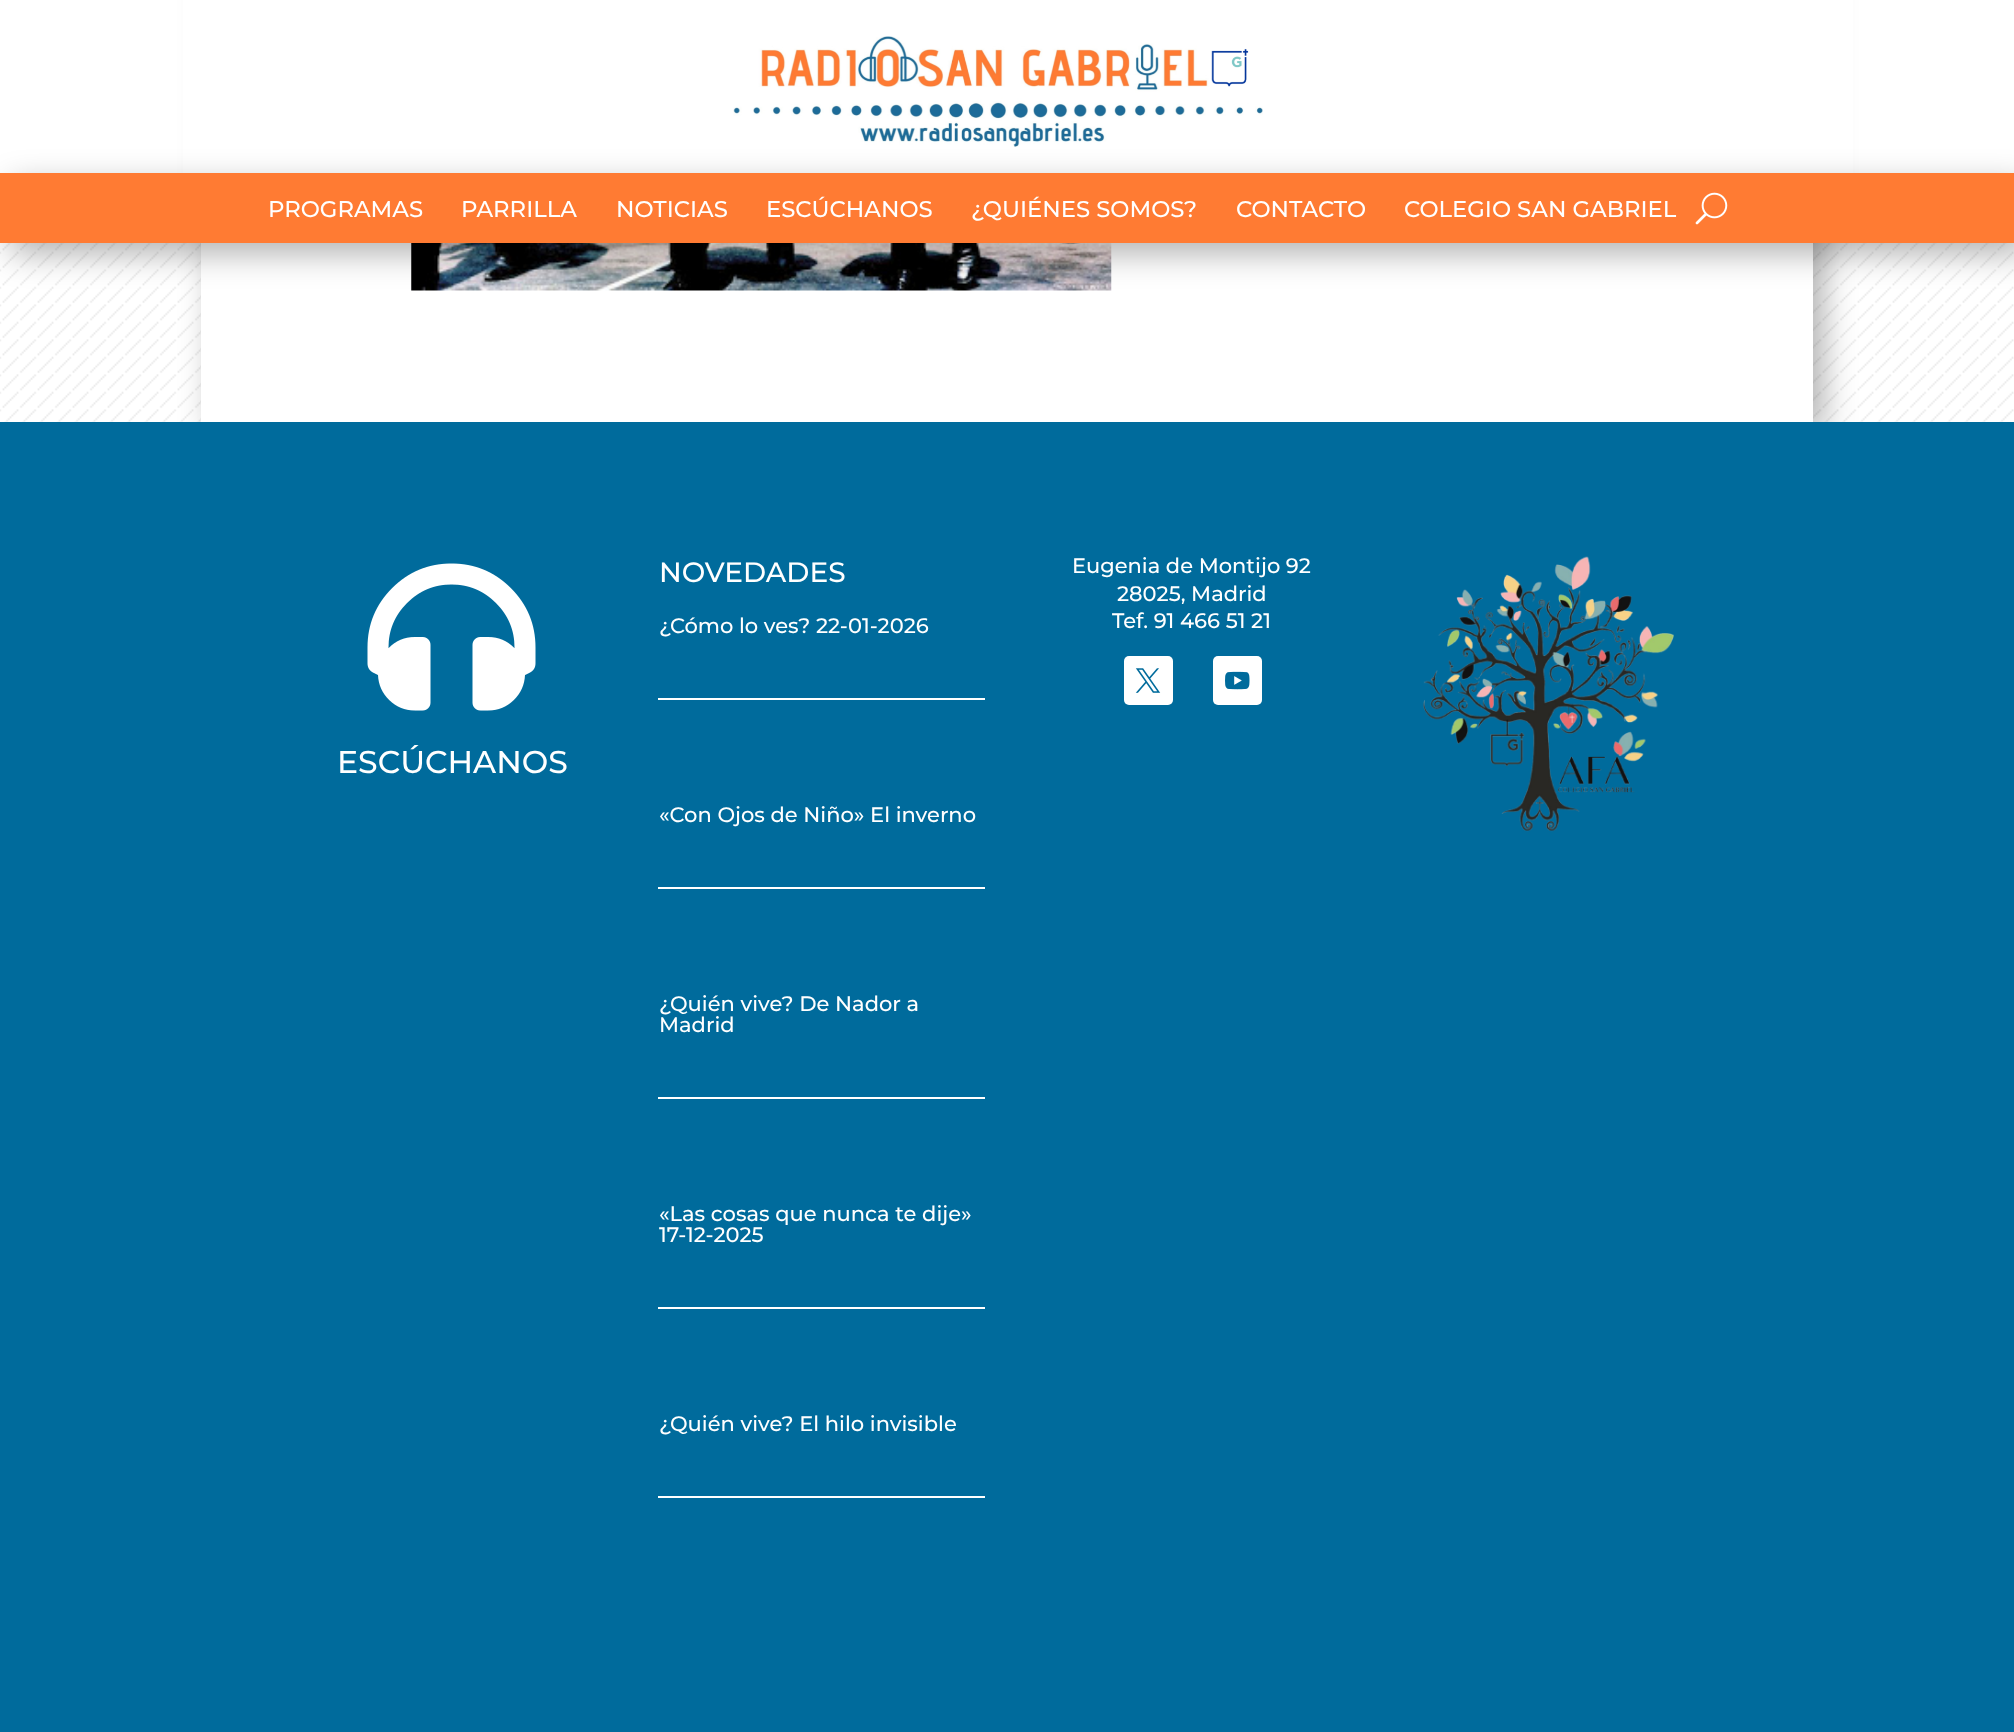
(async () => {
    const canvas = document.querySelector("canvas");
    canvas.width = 2014;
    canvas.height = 1732;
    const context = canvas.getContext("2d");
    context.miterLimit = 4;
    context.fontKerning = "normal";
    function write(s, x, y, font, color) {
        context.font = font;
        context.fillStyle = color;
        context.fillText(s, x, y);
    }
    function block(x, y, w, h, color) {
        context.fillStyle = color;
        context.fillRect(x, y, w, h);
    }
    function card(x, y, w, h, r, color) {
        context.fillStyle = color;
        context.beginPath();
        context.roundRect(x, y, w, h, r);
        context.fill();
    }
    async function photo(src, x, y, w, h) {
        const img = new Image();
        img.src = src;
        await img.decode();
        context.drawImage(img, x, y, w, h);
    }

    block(0, 0, 2014, 1732, "rgb(255, 255, 255)");
    await photo("media/3.png", 0, 243, 2014, 179);
    context.fillStyle = "rgba(0, 0, 0, 0.3)";
    context.filter = "blur(16px)";
    context.beginPath();
    context.rect(212, -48, 1612, 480);
    context.fill();
    context.filter = "none";
    block(183, 0, 1670, 173, "rgb(255, 255, 255)");
    await photo("media/1.png", 733, 36, 530, 111);
    block(201, 243, 1612, 179, "rgb(255, 255, 255)");
    await photo("media/4.png", 411, 243, 701, 48);
    context.fillStyle = "rgba(0, 0, 0, 0.3)";
    context.filter = "blur(16px)";
    context.beginPath();
    context.rect(11, 184, 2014, 70);
    context.fill();
    context.filter = "none";
    block(0, 173, 2014, 70, "rgb(255, 123, 51)");
    write("PROGRAMAS", 268, 217, "500 22.75px Montserrat", "rgb(255, 255, 255)");
    write("PARRILLA", 461, 217, "500 22.75px Montserrat", "rgb(255, 255, 255)");
    write("NOTICIAS", 616, 217, "500 22.75px Montserrat", "rgb(255, 255, 255)");
    write("ESCÚCHANOS", 766, 217, "500 22.75px Montserrat", "rgb(255, 255, 255)");
    write("¿QUIÉNES SOMOS?", 971, 217, "500 22.75px Montserrat", "rgb(255, 255, 255)");
    write("CONTACTO", 1236, 217, "500 22.75px Montserrat", "rgb(255, 255, 255)");
    write("COLEGIO SAN GABRIEL", 1404, 217, "500 22.75px Montserrat", "rgb(255, 255, 255)");
    await photo("media/2.png", 1695, 192, 33, 33);
    block(0, 422, 2014, 1310, "rgb(0, 107, 156)");
    await photo("media/5.png", 367, 563, 169, 148);
    write("ESCÚCHANOS", 337, 773, "500 31.5px Montserrat", "rgb(255, 255, 255)");
    write("NOVEDADES", 659, 582, "500 28px Montserrat", "rgb(255, 255, 255)");
    block(658, 698, 327, 2, "rgb(255, 255, 255)");
    write("¿Cómo lo ves? 22-01-2026", 659, 633, "500 21px Montserrat", "rgb(255, 255, 255)");
    block(658, 887, 327, 2, "rgb(255, 255, 255)");
    write("«Con Ojos de Niño» El inverno", 659, 822, "500 21px Montserrat", "rgb(255, 255, 255)");
    block(658, 1097, 327, 2, "rgb(255, 255, 255)");
    write("¿Quién vive? De Nador a", 659, 1011, "500 21px Montserrat", "rgb(255, 255, 255)");
    write("Madrid", 659, 1032, "500 21px Montserrat", "rgb(255, 255, 255)");
    block(658, 1307, 327, 2, "rgb(255, 255, 255)");
    write("«Las cosas que nunca te dije»", 659, 1221, "500 21px Montserrat", "rgb(255, 255, 255)");
    write("17-12-2025", 659, 1242, "500 21px Montserrat", "rgb(255, 255, 255)");
    block(658, 1496, 327, 2, "rgb(255, 255, 255)");
    write("¿Quién vive? El hilo invisible", 659, 1431, "500 21px Montserrat", "rgb(255, 255, 255)");
    write("Eugenia de Montijo 92", 1072, 573, "500 21px Montserrat", "rgb(255, 255, 255)");
    write("28025, Madrid", 1117, 601, "500 21px Montserrat", "rgb(255, 255, 255)");
    write("Tef. 91 466 51 21", 1112, 628, "500 21px Montserrat", "rgb(255, 255, 255)");
    card(1124, 656, 49, 49, 5, "rgb(255, 255, 255)");
    await photo("media/6.png", 1135, 668, 26, 25);
    card(1213, 656, 49, 49, 5, "rgb(255, 255, 255)");
    await photo("media/7.png", 1225, 671, 25, 19);
    await photo("media/8.png", 1423, 556, 251, 276);
})();
